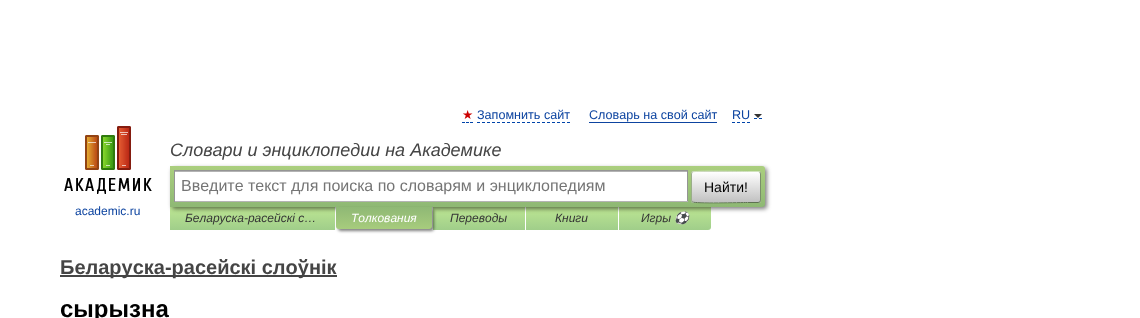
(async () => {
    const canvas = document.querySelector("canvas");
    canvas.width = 1140;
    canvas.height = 318;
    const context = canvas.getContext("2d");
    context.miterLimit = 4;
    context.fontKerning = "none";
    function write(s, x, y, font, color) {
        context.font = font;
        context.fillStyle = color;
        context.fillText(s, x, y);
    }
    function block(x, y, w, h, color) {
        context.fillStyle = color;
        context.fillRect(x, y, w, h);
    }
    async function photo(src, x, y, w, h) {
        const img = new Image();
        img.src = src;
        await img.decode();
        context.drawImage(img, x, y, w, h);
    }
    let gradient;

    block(0, 0, 1140, 318, "rgb(255, 255, 255)");
    write("★", 462, 119, "12.6px DejaVu Sans", "rgb(204, 0, 0)");
    context.beginPath();
    context.moveTo(462, 122.5);
    context.lineTo(465, 122.5);
    context.moveTo(466, 122.5);
    context.lineTo(469, 122.5);
    context.moveTo(470, 122.5);
    context.lineTo(473, 122.5);
    context.strokeStyle = "rgb(0, 68, 170)";
    context.stroke();
    write("Запомнить сайт", 477, 119, "12.6px Liberation Sans", "rgb(13, 68, 160)");
    context.beginPath();
    context.moveTo(477, 122.5);
    context.lineTo(570, 122.5);
    context.setLineDash([3, 2]);
    context.stroke();
    write("Словарь на свой сайт", 589, 119, "12.6px Liberation Sans", "rgb(13, 68, 160)");
    block(589, 122, 128, 1, "rgb(13, 68, 160)");
    context.beginPath();
    context.moveTo(732, 122.5);
    context.lineTo(750, 122.5);
    context.stroke();
    context.beginPath();
    context.moveTo(754, 118.5);
    context.lineTo(757, 118.5);
    context.moveTo(759, 118.5);
    context.lineTo(762, 118.5);
    context.setLineDash([]);
    context.stroke();
    write("RU", 732, 119, "12.6px Liberation Sans", "rgb(13, 68, 160)");
    context.fillStyle = "rgb(51, 51, 51)";
    context.beginPath();
    context.moveTo(754, 114);
    context.lineTo(762, 114);
    context.lineTo(758, 118);
    context.closePath();
    context.fill();
    write("Словари и энциклопедии на Академике", 170, 156, "italic 18px Liberation Sans", "rgb(69, 69, 69)");
    gradient = context.createLinearGradient(253, 207, 253, 230);
    gradient.addColorStop(0, "rgb(189, 230, 147)");
    gradient.addColorStop(1, "rgb(160, 206, 138)");
    context.fillStyle = gradient;
    context.fillRect(170, 207, 165, 23);
    gradient = context.createLinearGradient(479, 207, 479, 230);
    gradient.addColorStop(0, "rgb(189, 230, 147)");
    gradient.addColorStop(1, "rgb(160, 206, 138)");
    context.fillStyle = gradient;
    context.fillRect(433, 207, 92, 23);
    gradient = context.createLinearGradient(572, 207, 572, 230);
    gradient.addColorStop(0, "rgb(189, 230, 147)");
    gradient.addColorStop(1, "rgb(160, 206, 138)");
    context.fillStyle = gradient;
    context.fillRect(526, 207, 92, 23);
    gradient = context.createLinearGradient(665, 207, 665, 230);
    gradient.addColorStop(0, "rgb(189, 230, 147)");
    gradient.addColorStop(1, "rgb(160, 206, 138)");
    context.fillStyle = gradient;
    context.beginPath();
    context.roundRect(619, 207, 92, 23, [0, 0, 3, 0]);
    context.fill();
    context.fillStyle = "rgba(0, 0, 0, 0.5)";
    context.filter = "blur(2px)";
    context.beginPath();
    context.roundRect(172, 168, 595, 41, 3);
    context.fill();
    context.filter = "none";
    gradient = context.createLinearGradient(468, 166, 468, 207);
    gradient.addColorStop(0, "rgb(171, 207, 126)");
    gradient.addColorStop(1, "rgb(142, 184, 116)");
    context.fillStyle = gradient;
    context.beginPath();
    context.roundRect(170, 166, 595, 41, [0, 3, 3, 0]);
    context.fill();
    block(175, 172, 512, 29, "rgb(255, 255, 255)");
    block(175, 171, 512, 1, "rgb(179, 179, 179)");
    block(174, 170, 514, 1, "rgb(148, 148, 148)");
    block(687, 170, 1, 32, "rgb(148, 148, 148)");
    block(174, 201, 514, 1, "rgb(180, 180, 180)");
    block(174, 170, 1, 32, "rgb(148, 148, 148)");
    write("Введите текст для поиска по словарям и энциклопедиям", 181, 191, "16px Liberation Sans", "rgb(117, 117, 117)");
    context.save();
    context.beginPath();
    context.roundRect(691, 171, 70, 32, 3);
    context.clip();
    gradient = context.createLinearGradient(726, 142, 726, 172);
    gradient.addColorStop(0, "rgb(255, 255, 255)");
    gradient.addColorStop(1, "rgb(193, 193, 193)");
    context.fillStyle = gradient;
    context.fillRect(691, 171, 70, 1);
    gradient = context.createLinearGradient(726, 172, 726, 202);
    gradient.addColorStop(0, "rgb(255, 255, 255)");
    gradient.addColorStop(1, "rgb(193, 193, 193)");
    context.fillStyle = gradient;
    context.fillRect(691, 172, 70, 30);
    gradient = context.createLinearGradient(726, 202, 726, 232);
    gradient.addColorStop(0, "rgb(255, 255, 255)");
    gradient.addColorStop(1, "rgb(193, 193, 193)");
    context.fillStyle = gradient;
    context.fillRect(691, 202, 70, 1);
    context.restore();
    context.beginPath();
    context.moveTo(692, 172);
    context.lineTo(692.5, 172);
    context.bezierCurveTo(694.5, 170.5, 741, 171.5, 747.5, 171.5);
    context.lineTo(758, 171.5);
    context.lineTo(760, 172);
    context.strokeStyle = "rgb(209, 228, 188)";
    context.stroke();
    context.beginPath();
    context.moveTo(760, 172);
    context.bezierCurveTo(760, 172.5, 760.5, 173.5, 760.5, 174);
    context.lineTo(760.5, 200);
    context.bezierCurveTo(760.5, 200.5, 760, 201.5, 760, 202);
    context.strokeStyle = "rgb(122, 142, 105)";
    context.stroke();
    context.beginPath();
    context.moveTo(760, 202);
    context.lineTo(758, 202.5);
    context.lineTo(747.5, 202.5);
    context.bezierCurveTo(741, 202.5, 694.5, 203.5, 692.5, 202);
    context.lineTo(692, 202);
    context.strokeStyle = "rgb(93, 114, 80)";
    context.stroke();
    context.beginPath();
    context.moveTo(692, 202);
    context.bezierCurveTo(692, 201.5, 691.5, 200.5, 691.5, 200);
    context.lineTo(691.5, 174);
    context.bezierCurveTo(691.5, 173.5, 692, 172.5, 692, 172);
    context.strokeStyle = "rgb(154, 174, 137)";
    context.stroke();
    write("Найти!", 704, 192, "14px Liberation Sans", "rgb(0, 0, 0)");
    await photo("media/1.png", 64, 126, 88, 68);
    write("academic.ru", 75, 215, "12px Liberation Sans", "rgb(13, 68, 160)");
    write("Беларуска-расейскі с…", 185, 222, "italic 12px Liberation Sans", "rgb(53, 53, 53)");
    context.fillStyle = "rgba(0, 0, 0, 0.5)";
    context.filter = "blur(1.5px)";
    context.beginPath();
    context.roundRect(338, 209, 96, 22, 3);
    context.fill();
    context.filter = "none";
    gradient = context.createLinearGradient(384, 207, 384, 229);
    gradient.addColorStop(0, "rgb(143, 184, 117)");
    gradient.addColorStop(1, "rgb(167, 204, 125)");
    context.fillStyle = gradient;
    context.beginPath();
    context.roundRect(336, 207, 96, 22, [0, 0, 3, 3]);
    context.fill();
    write("Толкования", 351, 222, "italic 12px Liberation Sans", "rgb(255, 255, 255)");
    write("Переводы", 450, 222, "italic 12px Liberation Sans", "rgb(53, 53, 53)");
    write("Книги", 555, 222, "italic 12px Liberation Sans", "rgb(53, 53, 53)");
    write("Игры", 641, 222, "italic 12px Liberation Sans", "rgb(53, 53, 53)");
    write("⚽", 674, 222, "italic 12px Noto Color Emoji", "rgb(53, 53, 53)");
    block(60, 275, 277, 2, "rgb(69, 69, 69)");
    write("Беларуска-расейскі слоўнік", 60, 274, "bold 20px Liberation Sans", "rgb(69, 69, 69)");
    write("сырызна", 60, 317, "bold 24px Liberation Sans", "rgb(0, 0, 0)");
})();
